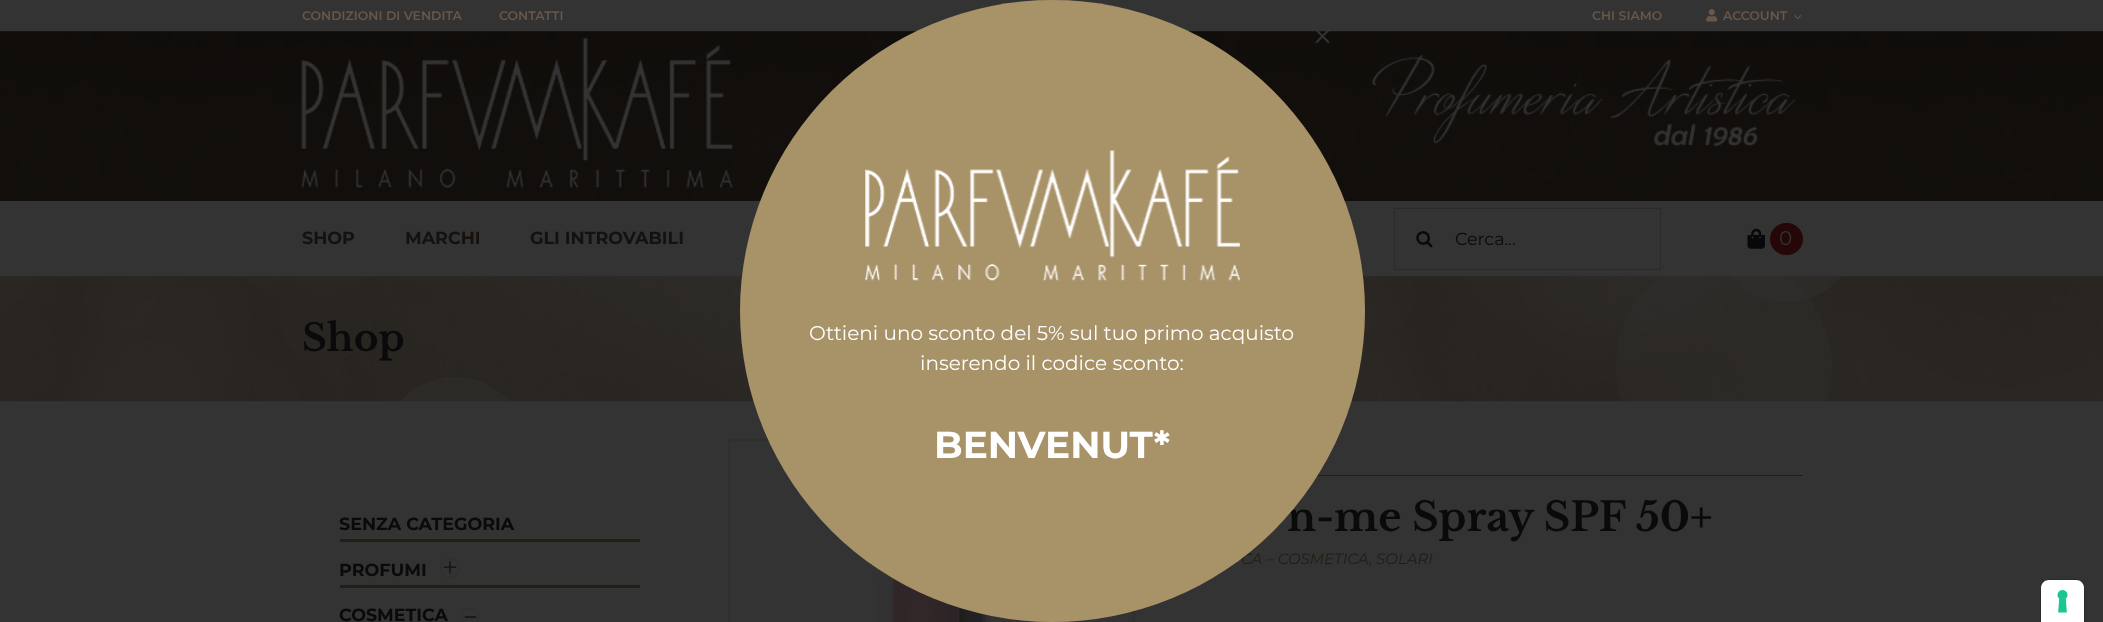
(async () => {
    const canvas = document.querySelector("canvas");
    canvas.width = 2103;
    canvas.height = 622;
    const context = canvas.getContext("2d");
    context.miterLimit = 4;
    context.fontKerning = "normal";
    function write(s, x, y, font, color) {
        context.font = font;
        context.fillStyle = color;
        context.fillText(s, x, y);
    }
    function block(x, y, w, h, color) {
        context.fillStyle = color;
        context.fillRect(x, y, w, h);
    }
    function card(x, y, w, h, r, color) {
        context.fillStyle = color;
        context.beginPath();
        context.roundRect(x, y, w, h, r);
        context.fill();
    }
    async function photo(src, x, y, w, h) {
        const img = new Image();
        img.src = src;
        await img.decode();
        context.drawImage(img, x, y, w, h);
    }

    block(0, 0, 2103, 622, "rgb(51, 51, 51)");
    write("CONDIZIONI DI VENDITA", 302, 20, "600 12.5px Montserrat", "rgb(104, 87, 74)");
    write("CONTATTI", 499, 20, "600 12.5px Montserrat", "rgb(104, 87, 74)");
    write("CHI SIAMO", 1592, 20, "600 12.5px Montserrat", "rgb(104, 87, 74)");
    await photo("media/1.png", 1706, 9, 12, 13);
    write("ACCOUNT", 1723, 20, "600 12.5px Montserrat", "rgb(104, 87, 74)");
    await photo("media/2.png", 1794, 15, 8, 4);
    await photo("media/3.png", 0, 31, 2103, 170);
    await photo("media/4.png", 301, 37, 432, 152);
    await photo("media/5.png", 1372, 54, 425, 93);
    write("SHOP", 302, 244, "bold 17.5px Montserrat", "rgb(21, 17, 15)");
    write("MARCHI", 405, 244, "bold 17.5px Montserrat", "rgb(21, 17, 15)");
    write("GLI INTROVABILI", 530, 244, "bold 17.5px Montserrat", "rgb(21, 17, 15)");
    context.strokeStyle = "rgb(43, 42, 41)";
    context.strokeRect(1394.5, 208.5, 266, 61);
    await photo("media/6.png", 1416, 231, 17, 17);
    write("Cerca...", 1455, 245, "17.5px Montserrat", "rgb(10, 10, 10)");
    await photo("media/7.png", 1747, 228, 18, 21);
    card(1770, 223, 33, 32, 16, "rgb(37, 7, 7)");
    write("0", 1779, 245, "20px Montserrat", "rgb(51, 51, 51)");
    await photo("media/8.png", 0, 276, 2103, 126);
    write("Shop", 302, 351, "bold 37.5px Libre Baskerville", "rgb(10, 10, 10)");
    write("SENZA CATEGORIA", 339, 530, "bold 17.5px Montserrat", "rgb(10, 10, 10)");
    block(340, 539, 300, 3, "rgb(34, 29, 21)");
    write("PROFUMI", 339, 576, "bold 17.5px Montserrat", "rgb(10, 10, 10)");
    context.beginPath();
    context.arc(450, 568, 9.5, 0, Math.PI * 2);
    context.strokeStyle = "rgb(46, 46, 46)";
    context.stroke();
    await photo("media/9.png", 443, 560, 14, 14);
    block(340, 585, 300, 3, "rgb(34, 29, 21)");
    write("COSMETICA", 339, 621, "bold 17.5px Montserrat", "rgb(10, 10, 10)");
    context.beginPath();
    context.arc(470, 617, 8.5, 0, Math.PI * 2);
    context.stroke();
    await photo("media/10.png", 464, 616, 13, 2);
    context.strokeStyle = "rgb(47, 47, 47)";
    context.lineWidth = 3;
    context.strokeRect(729.5, 440.5, 404, 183);
    await photo("media/11.png", 730, 441, 403, 181);
    block(1317, 475, 486, 1, "rgb(34, 29, 21)");
    write("n-me Spray SPF 50+", 1287, 531, "bold 40px Libre Baskerville", "rgb(10, 10, 10)");
    write("CA – COSMETICA, SOLARI", 1241, 564, "italic 15px Montserrat", "rgb(34, 29, 21)");
    context.fillStyle = "rgb(168, 146, 104)";
    context.beginPath();
    context.ellipse(1052.5, 311, 312.5, 311, 0, 0, Math.PI * 2);
    context.fill();
    await photo("media/12.png", 1315, 31, 15, 13);
    await photo("media/13.png", 865, 150, 375, 131);
    write("Ottieni uno sconto del 5% sul tuo primo acquisto", 809, 340, "20px Montserrat", "rgb(255, 255, 255)");
    write("inserendo il codice sconto:", 920, 370, "20px Montserrat", "rgb(255, 255, 255)");
    write("BENVENUT*", 934, 458, "bold 37.5px Montserrat", "rgb(255, 255, 255)");
    context.beginPath();
    context.moveTo(2049, 579.5);
    context.lineTo(2076, 579.5);
    context.bezierCurveTo(2080.5, 579.5, 2084.5, 583.5, 2084.5, 588);
    context.lineTo(2084.5, 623.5);
    context.lineTo(2040.5, 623.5);
    context.lineTo(2040.5, 588);
    context.bezierCurveTo(2040.5, 583.5, 2044.5, 579.5, 2049, 579.5);
    context.closePath();
    context.strokeStyle = "rgb(43, 43, 43)";
    context.lineWidth = 1;
    context.stroke();
    context.beginPath();
    context.moveTo(2049, 580);
    context.lineTo(2076, 580);
    context.bezierCurveTo(2080.5, 580, 2084, 583.5, 2084, 588);
    context.lineTo(2084, 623);
    context.lineTo(2041, 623);
    context.lineTo(2041, 588);
    context.bezierCurveTo(2041, 583.5, 2044.5, 580, 2049, 580);
    context.closePath();
    context.fill();
    await photo("media/14.png", 2057, 590, 11, 23);
})();
